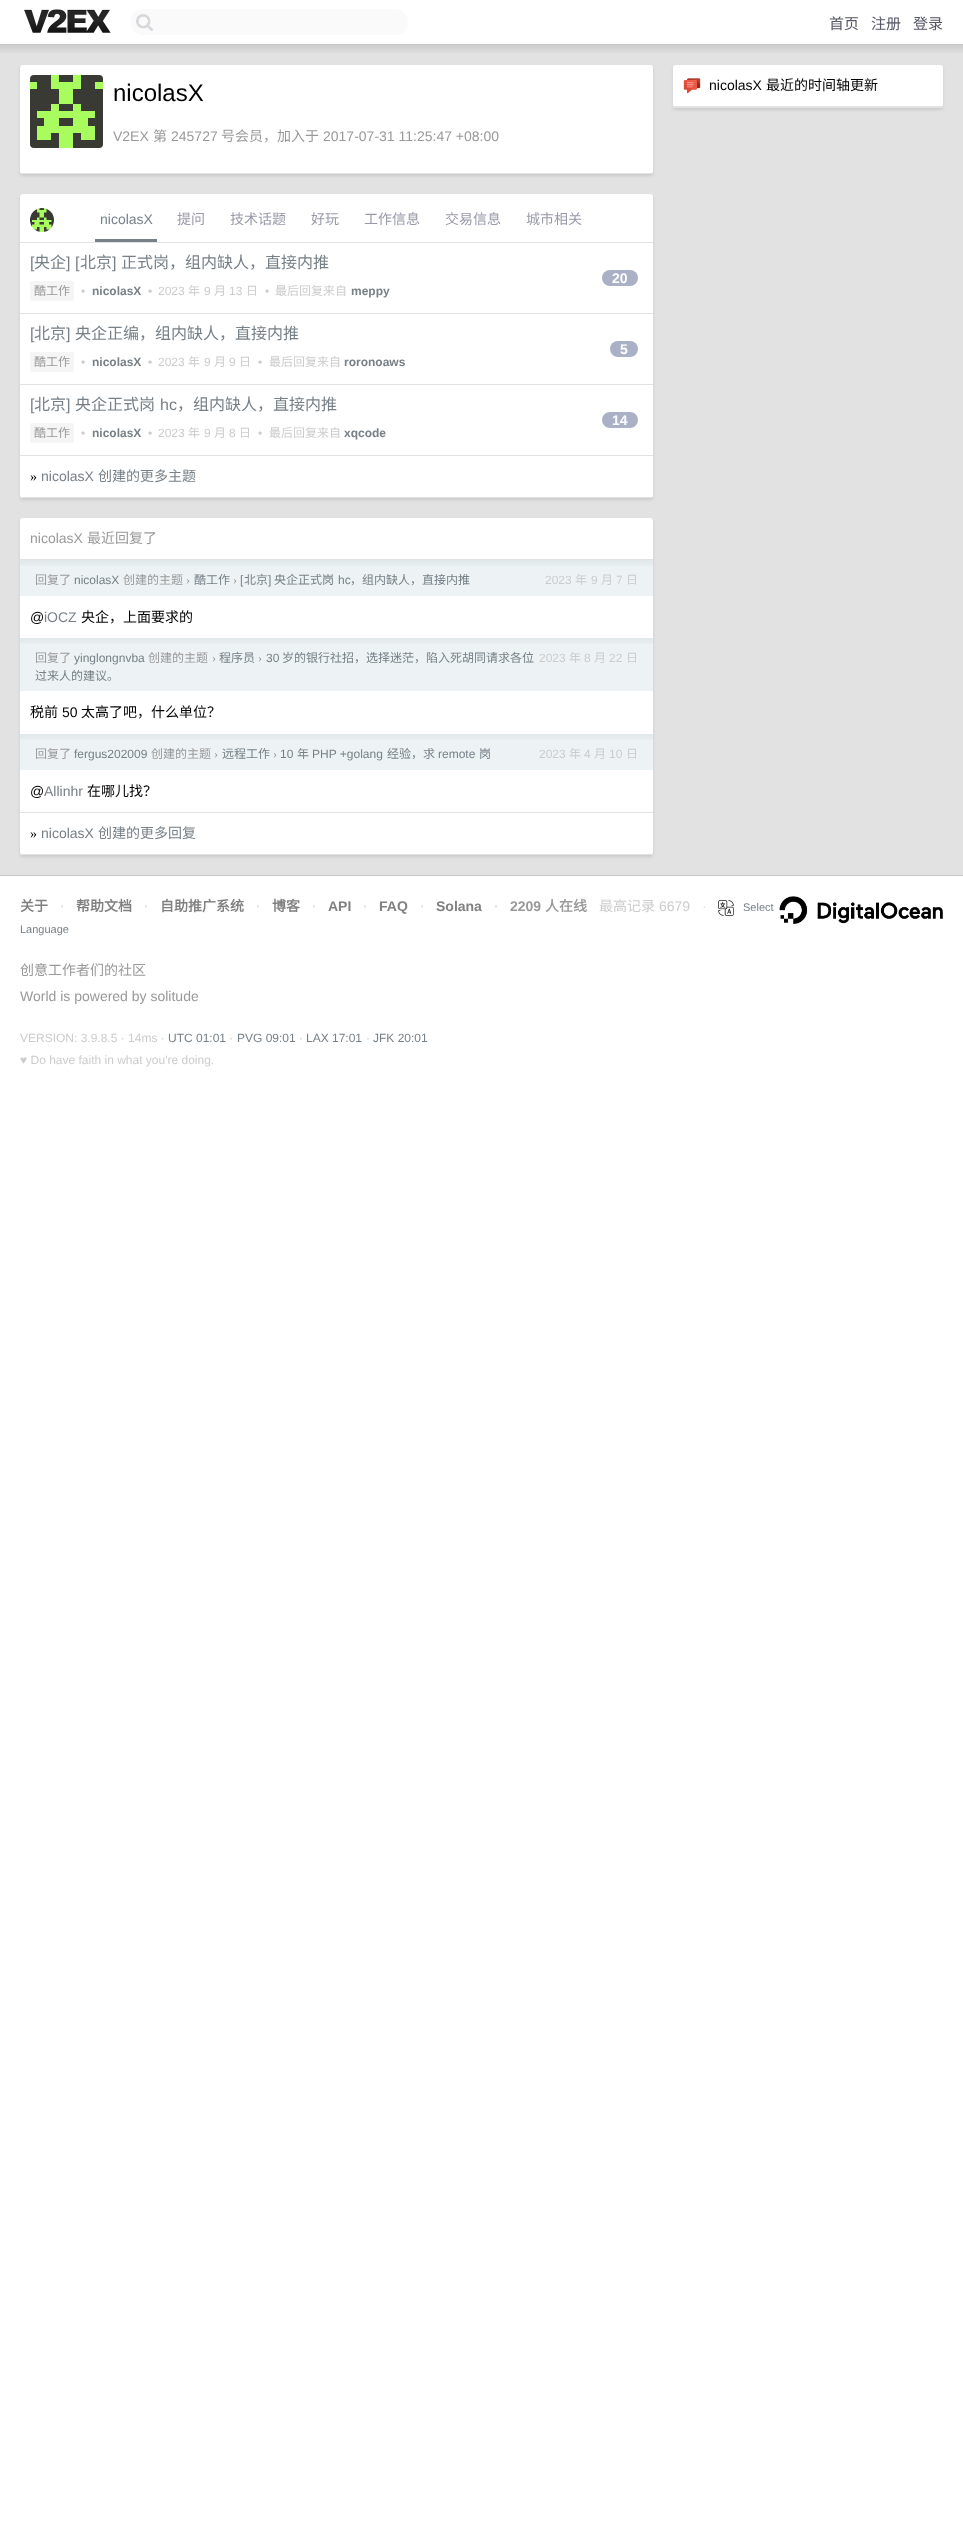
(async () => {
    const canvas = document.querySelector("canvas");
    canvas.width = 963;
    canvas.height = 2542;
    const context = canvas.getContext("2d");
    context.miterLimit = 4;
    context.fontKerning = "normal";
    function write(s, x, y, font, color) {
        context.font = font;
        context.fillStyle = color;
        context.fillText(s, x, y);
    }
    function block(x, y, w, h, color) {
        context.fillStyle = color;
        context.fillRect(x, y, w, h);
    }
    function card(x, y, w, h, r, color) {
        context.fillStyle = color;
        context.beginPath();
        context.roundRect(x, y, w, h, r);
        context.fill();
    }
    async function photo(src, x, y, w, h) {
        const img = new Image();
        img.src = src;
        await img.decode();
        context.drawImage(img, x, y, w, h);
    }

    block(0, 0, 963, 2542, "rgb(255, 255, 255)");
    block(0, 44, 963, 1, "rgb(199, 199, 199)");
    await photo("media/1.png", 24, 9, 87, 24);
    card(130, 9, 278, 26, 13, "rgb(250, 250, 250)");
    await photo("media/2.png", 136, 14, 17, 17);
    write("首页", 829, 29, "15px Noto Sans CJK SC", "rgb(85, 85, 102)");
    write("注册", 871, 29, "15px Noto Sans CJK SC", "rgb(85, 85, 102)");
    write("登录", 913, 29, "15px Noto Sans CJK SC", "rgb(85, 85, 102)");
    block(0, 45, 963, 830, "rgb(226, 226, 226)");
    await photo("media/3.png", 0, 45, 963, 8);
    context.fillStyle = "rgba(0, 0, 0, 0.1)";
    context.filter = "blur(1.5px)";
    context.beginPath();
    context.roundRect(20, 67, 633, 109, 3);
    context.fill();
    context.filter = "none";
    card(20, 65, 633, 109, 3, "rgb(255, 255, 255)");
    block(22, 173, 630, 1, "rgb(226, 226, 226)");
    await photo("media/4.png", 30, 75, 73, 73);
    write("nicolasX", 113, 101, "24px Liberation Sans", "rgb(0, 0, 0)");
    write("V2EX", 113, 141, "14px Liberation Sans", "rgb(153, 153, 153)");
    write("第", 153, 141, "14px Noto Sans CJK SC", "rgb(153, 153, 153)");
    write("245727", 171, 141, "14px Liberation Sans", "rgb(153, 153, 153)");
    write("号会员，加入于", 221, 141, "14px Noto Sans CJK SC", "rgb(153, 153, 153)");
    write("2017-07-31 11:25:47 +08:00", 323, 141, "14px Liberation Sans", "rgb(153, 153, 153)");
    context.fillStyle = "rgba(0, 0, 0, 0.1)";
    context.filter = "blur(1.5px)";
    context.beginPath();
    context.roundRect(20, 196, 633, 304, 3);
    context.fill();
    context.filter = "none";
    card(20, 194, 633, 304, 3, "rgb(255, 255, 255)");
    block(22, 497, 630, 1, "rgb(226, 226, 226)");
    block(20, 242, 633, 1, "rgb(226, 226, 226)");
    await photo("media/5.png", 30, 208, 24, 24);
    block(95, 239, 62, 3, "rgb(119, 128, 135)");
    write("nicolasX", 100, 224, "14px Liberation Sans", "rgb(119, 128, 135)");
    write("提问", 177, 224, "14px Noto Sans CJK SC", "rgb(153, 153, 170)");
    write("技术话题", 230, 224, "14px Noto Sans CJK SC", "rgb(153, 153, 170)");
    write("好玩", 311, 224, "14px Noto Sans CJK SC", "rgb(153, 153, 170)");
    write("工作信息", 364, 224, "14px Noto Sans CJK SC", "rgb(153, 153, 170)");
    write("交易信息", 445, 224, "14px Noto Sans CJK SC", "rgb(153, 153, 170)");
    write("城市相关", 526, 224, "14px Noto Sans CJK SC", "rgb(153, 153, 170)");
    block(20, 313, 633, 1, "rgb(226, 226, 226)");
    write("[", 30, 268, "16px Liberation Sans", "rgb(119, 128, 135)");
    write("央企", 34, 268, "16px Noto Sans CJK SC", "rgb(119, 128, 135)");
    write("] [", 66, 268, "16px Liberation Sans", "rgb(119, 128, 135)");
    write("北京", 80, 268, "16px Noto Sans CJK SC", "rgb(119, 128, 135)");
    write("]", 112, 268, "16px Liberation Sans", "rgb(119, 128, 135)");
    write("正式岗，组内缺人，直接内推", 121, 268, "16px Noto Sans CJK SC", "rgb(119, 128, 135)");
    card(30, 281, 44, 20, 2, "rgb(245, 245, 245)");
    write("酷工作", 34, 295, "12px Noto Sans CJK SC", "rgb(153, 153, 153)");
    write("•", 81, 295, "12px Liberation Sans", "rgb(204, 204, 204)");
    write("nicolasX", 92, 295, "bold 12px Liberation Sans", "rgb(119, 128, 135)");
    write("•", 148, 295, "12px Liberation Sans", "rgb(204, 204, 204)");
    write("2023", 158, 295, "12px Liberation Sans", "rgb(204, 204, 204)");
    write("年", 188, 295, "12px Noto Sans CJK SC", "rgb(204, 204, 204)");
    write("9", 204, 295, "12px Liberation Sans", "rgb(204, 204, 204)");
    write("月", 214, 295, "12px Noto Sans CJK SC", "rgb(204, 204, 204)");
    write("13", 229, 295, "12px Liberation Sans", "rgb(204, 204, 204)");
    write("日", 246, 295, "12px Noto Sans CJK SC", "rgb(204, 204, 204)");
    write("•", 265, 295, "12px Liberation Sans", "rgb(204, 204, 204)");
    write("最后回复来自", 275, 295, "12px Noto Sans CJK SC", "rgb(204, 204, 204)");
    write("meppy", 351, 295, "bold 12px Liberation Sans", "rgb(119, 128, 135)");
    card(602, 270, 36, 16, 8, "rgb(170, 176, 198)");
    write("20", 612, 283, "bold 14px Liberation Sans", "rgb(255, 255, 255)");
    block(20, 384, 633, 1, "rgb(226, 226, 226)");
    write("[", 30, 339, "16px Liberation Sans", "rgb(119, 128, 135)");
    write("北京", 34, 339, "16px Noto Sans CJK SC", "rgb(119, 128, 135)");
    write("]", 66, 339, "16px Liberation Sans", "rgb(119, 128, 135)");
    write("央企正编，组内缺人，直接内推", 75, 339, "16px Noto Sans CJK SC", "rgb(119, 128, 135)");
    card(30, 352, 44, 20, 2, "rgb(245, 245, 245)");
    write("酷工作", 34, 366, "12px Noto Sans CJK SC", "rgb(153, 153, 153)");
    write("•", 81, 366, "12px Liberation Sans", "rgb(204, 204, 204)");
    write("nicolasX", 92, 366, "bold 12px Liberation Sans", "rgb(119, 128, 135)");
    write("•", 148, 366, "12px Liberation Sans", "rgb(204, 204, 204)");
    write("2023", 158, 366, "12px Liberation Sans", "rgb(204, 204, 204)");
    write("年", 188, 366, "12px Noto Sans CJK SC", "rgb(204, 204, 204)");
    write("9", 204, 366, "12px Liberation Sans", "rgb(204, 204, 204)");
    write("月", 214, 366, "12px Noto Sans CJK SC", "rgb(204, 204, 204)");
    write("9", 229, 366, "12px Liberation Sans", "rgb(204, 204, 204)");
    write("日", 239, 366, "12px Noto Sans CJK SC", "rgb(204, 204, 204)");
    write("•", 258, 366, "12px Liberation Sans", "rgb(204, 204, 204)");
    write("最后回复来自", 269, 366, "12px Noto Sans CJK SC", "rgb(204, 204, 204)");
    write("roronoaws", 344, 366, "bold 12px Liberation Sans", "rgb(119, 128, 135)");
    card(610, 341, 28, 16, 8, "rgb(170, 176, 198)");
    write("5", 620, 354, "bold 14px Liberation Sans", "rgb(255, 255, 255)");
    block(20, 455, 633, 1, "rgb(226, 226, 226)");
    write("[", 30, 410, "16px Liberation Sans", "rgb(119, 128, 135)");
    write("北京", 34, 410, "16px Noto Sans CJK SC", "rgb(119, 128, 135)");
    write("]", 66, 410, "16px Liberation Sans", "rgb(119, 128, 135)");
    write("央企正式岗", 75, 410, "16px Noto Sans CJK SC", "rgb(119, 128, 135)");
    write("hc", 160, 410, "16px Liberation Sans", "rgb(119, 128, 135)");
    write("，组内缺人，直接内推", 177, 410, "16px Noto Sans CJK SC", "rgb(119, 128, 135)");
    card(30, 423, 44, 20, 2, "rgb(245, 245, 245)");
    write("酷工作", 34, 437, "12px Noto Sans CJK SC", "rgb(153, 153, 153)");
    write("•", 81, 437, "12px Liberation Sans", "rgb(204, 204, 204)");
    write("nicolasX", 92, 437, "bold 12px Liberation Sans", "rgb(119, 128, 135)");
    write("•", 148, 437, "12px Liberation Sans", "rgb(204, 204, 204)");
    write("2023", 158, 437, "12px Liberation Sans", "rgb(204, 204, 204)");
    write("年", 188, 437, "12px Noto Sans CJK SC", "rgb(204, 204, 204)");
    write("9", 204, 437, "12px Liberation Sans", "rgb(204, 204, 204)");
    write("月", 214, 437, "12px Noto Sans CJK SC", "rgb(204, 204, 204)");
    write("8", 229, 437, "12px Liberation Sans", "rgb(204, 204, 204)");
    write("日", 239, 437, "12px Noto Sans CJK SC", "rgb(204, 204, 204)");
    write("•", 258, 437, "12px Liberation Sans", "rgb(204, 204, 204)");
    write("最后回复来自", 269, 437, "12px Noto Sans CJK SC", "rgb(204, 204, 204)");
    write("xqcode", 344, 437, "bold 12px Liberation Sans", "rgb(119, 128, 135)");
    card(602, 412, 36, 16, 8, "rgb(170, 176, 198)");
    write("14", 612, 425, "bold 14px Liberation Sans", "rgb(255, 255, 255)");
    write("»", 30, 481, "14px Liberation Serif", "rgb(0, 0, 0)");
    write("nicolasX", 41, 481, "14px Liberation Sans", "rgb(119, 128, 135)");
    write("创建的更多主题", 98, 481, "14px Noto Sans CJK SC", "rgb(119, 128, 135)");
    context.fillStyle = "rgba(0, 0, 0, 0.1)";
    context.filter = "blur(1.5px)";
    context.beginPath();
    context.roundRect(20, 520, 633, 337, 3);
    context.fill();
    context.filter = "none";
    card(20, 518, 633, 337, 3, "rgb(255, 255, 255)");
    block(22, 854, 630, 1, "rgb(226, 226, 226)");
    block(20, 559, 633, 1, "rgb(226, 226, 226)");
    write("nicolasX", 30, 543, "14px Liberation Sans", "rgb(153, 153, 153)");
    write("最近回复了", 87, 543, "14px Noto Sans CJK SC", "rgb(153, 153, 153)");
    block(20, 560, 633, 36, "rgb(237, 243, 245)");
    await photo("media/6.png", 20, 560, 633, 6);
    write("回复了", 35, 584, "12px Noto Sans CJK SC", "rgb(153, 153, 153)");
    write("nicolasX", 74, 584, "12px Liberation Sans", "rgb(119, 128, 135)");
    write("创建的主题", 123, 584, "12px Noto Sans CJK SC", "rgb(153, 153, 153)");
    write("›", 186, 584, "12px Liberation Serif", "rgb(153, 153, 153)");
    write("酷工作", 194, 584, "12px Noto Sans CJK SC", "rgb(119, 128, 135)");
    write("›", 233, 584, "12px Liberation Serif", "rgb(153, 153, 153)");
    write("[", 240, 584, "12px Liberation Sans", "rgb(119, 128, 135)");
    write("北京", 244, 584, "12px Noto Sans CJK SC", "rgb(119, 128, 135)");
    write("]", 268, 584, "12px Liberation Sans", "rgb(119, 128, 135)");
    write("央企正式岗", 274, 584, "12px Noto Sans CJK SC", "rgb(119, 128, 135)");
    write("hc", 338, 584, "12px Liberation Sans", "rgb(119, 128, 135)");
    write("，组内缺人，直接内推", 350, 584, "12px Noto Sans CJK SC", "rgb(119, 128, 135)");
    write("2023", 545, 584, "12px Liberation Sans", "rgb(204, 204, 204)");
    write("年", 575, 584, "12px Noto Sans CJK SC", "rgb(204, 204, 204)");
    write("9", 591, 584, "12px Liberation Sans", "rgb(204, 204, 204)");
    write("月", 601, 584, "12px Noto Sans CJK SC", "rgb(204, 204, 204)");
    write("7", 616, 584, "12px Liberation Sans", "rgb(204, 204, 204)");
    write("日", 626, 584, "12px Noto Sans CJK SC", "rgb(204, 204, 204)");
    write("@", 30, 622, "14px Liberation Sans", "rgb(0, 0, 0)");
    write("iOCZ", 44, 622, "14px Liberation Sans", "rgb(119, 128, 135)");
    write("央企，上面要求的", 81, 622, "14px Noto Sans CJK SC", "rgb(0, 0, 0)");
    block(20, 638, 633, 53, "rgb(237, 243, 245)");
    await photo("media/6.png", 20, 638, 633, 6);
    write("回复了", 35, 662, "12px Noto Sans CJK SC", "rgb(153, 153, 153)");
    write("yinglongnvba", 74, 662, "12px Liberation Sans", "rgb(119, 128, 135)");
    write("创建的主题", 148, 662, "12px Noto Sans CJK SC", "rgb(153, 153, 153)");
    write("›", 212, 662, "12px Liberation Serif", "rgb(153, 153, 153)");
    write("程序员", 219, 662, "12px Noto Sans CJK SC", "rgb(119, 128, 135)");
    write("›", 258, 662, "12px Liberation Serif", "rgb(153, 153, 153)");
    write("30", 266, 662, "12px Liberation Sans", "rgb(119, 128, 135)");
    write("岁的银行社招，选择迷茫，陷入死胡同请求各位", 282, 662, "12px Noto Sans CJK SC", "rgb(119, 128, 135)");
    write("2023", 539, 662, "12px Liberation Sans", "rgb(204, 204, 204)");
    write("年", 569, 662, "12px Noto Sans CJK SC", "rgb(204, 204, 204)");
    write("8", 584, 662, "12px Liberation Sans", "rgb(204, 204, 204)");
    write("月", 594, 662, "12px Noto Sans CJK SC", "rgb(204, 204, 204)");
    write("22", 609, 662, "12px Liberation Sans", "rgb(204, 204, 204)");
    write("日", 626, 662, "12px Noto Sans CJK SC", "rgb(204, 204, 204)");
    write("过来人的建议。", 35, 680, "12px Noto Sans CJK SC", "rgb(119, 128, 135)");
    write("税前", 30, 717, "14px Noto Sans CJK SC", "rgb(0, 0, 0)");
    write("50", 62, 717, "14px Liberation Sans", "rgb(0, 0, 0)");
    write("太高了吧，什么单位？", 81, 717, "14px Noto Sans CJK SC", "rgb(0, 0, 0)");
    block(20, 734, 633, 36, "rgb(237, 243, 245)");
    await photo("media/6.png", 20, 734, 633, 6);
    write("回复了", 35, 758, "12px Noto Sans CJK SC", "rgb(153, 153, 153)");
    write("fergus202009", 74, 758, "12px Liberation Sans", "rgb(119, 128, 135)");
    write("创建的主题", 151, 758, "12px Noto Sans CJK SC", "rgb(153, 153, 153)");
    write("›", 214, 758, "12px Liberation Serif", "rgb(153, 153, 153)");
    write("远程工作", 222, 758, "12px Noto Sans CJK SC", "rgb(119, 128, 135)");
    write("›", 273, 758, "12px Liberation Serif", "rgb(153, 153, 153)");
    write("10", 280, 758, "12px Liberation Sans", "rgb(119, 128, 135)");
    write("年", 297, 758, "12px Noto Sans CJK SC", "rgb(119, 128, 135)");
    write("PHP +golang", 312, 758, "12px Liberation Sans", "rgb(119, 128, 135)");
    write("经验，求", 387, 758, "12px Noto Sans CJK SC", "rgb(119, 128, 135)");
    write("remote", 438, 758, "12px Liberation Sans", "rgb(119, 128, 135)");
    write("岗", 479, 758, "12px Noto Sans CJK SC", "rgb(119, 128, 135)");
    write("2023", 539, 758, "12px Liberation Sans", "rgb(204, 204, 204)");
    write("年", 569, 758, "12px Noto Sans CJK SC", "rgb(204, 204, 204)");
    write("4", 584, 758, "12px Liberation Sans", "rgb(204, 204, 204)");
    write("月", 594, 758, "12px Noto Sans CJK SC", "rgb(204, 204, 204)");
    write("10", 609, 758, "12px Liberation Sans", "rgb(204, 204, 204)");
    write("日", 626, 758, "12px Noto Sans CJK SC", "rgb(204, 204, 204)");
    block(20, 812, 633, 1, "rgb(226, 226, 226)");
    write("@", 30, 796, "14px Liberation Sans", "rgb(0, 0, 0)");
    write("Allinhr", 44, 796, "14px Liberation Sans", "rgb(119, 128, 135)");
    write("在哪儿找？", 87, 796, "14px Noto Sans CJK SC", "rgb(0, 0, 0)");
    write("»", 30, 838, "14px Liberation Serif", "rgb(0, 0, 0)");
    write("nicolasX", 41, 838, "14px Liberation Sans", "rgb(119, 128, 135)");
    write("创建的更多回复", 98, 838, "14px Noto Sans CJK SC", "rgb(119, 128, 135)");
    context.fillStyle = "rgba(0, 0, 0, 0.1)";
    context.filter = "blur(1.5px)";
    context.beginPath();
    context.roundRect(673, 67, 270, 43, 3);
    context.fill();
    context.filter = "none";
    card(673, 65, 270, 43, 3, "rgb(255, 255, 255)");
    block(675, 107, 267, 1, "rgb(226, 226, 226)");
    block(673, 106, 270, 1, "rgb(226, 226, 226)");
    await photo("media/7.png", 683, 78, 18, 16);
    write("nicolasX", 709, 90, "14px Liberation Sans", "rgb(0, 0, 0)");
    write("最近的时间轴更新", 766, 90, "14px Noto Sans CJK SC", "rgb(0, 0, 0)");
    block(0, 875, 963, 1, "rgb(199, 199, 199)");
    write("关于", 20, 911, "bold 14px Noto Sans CJK SC", "rgb(128, 128, 128)");
    write("·", 60, 911, "bold 14px Liberation Sans", "rgb(226, 226, 226)");
    write("帮助文档", 76, 911, "bold 14px Noto Sans CJK SC", "rgb(128, 128, 128)");
    write("·", 144, 911, "bold 14px Liberation Sans", "rgb(226, 226, 226)");
    write("自助推广系统", 160, 911, "bold 14px Noto Sans CJK SC", "rgb(128, 128, 128)");
    write("·", 256, 911, "bold 14px Liberation Sans", "rgb(226, 226, 226)");
    write("博客", 272, 911, "bold 14px Noto Sans CJK SC", "rgb(128, 128, 128)");
    write("·", 312, 911, "bold 14px Liberation Sans", "rgb(226, 226, 226)");
    write("API", 328, 911, "bold 14px Liberation Sans", "rgb(128, 128, 128)");
    write("·", 363, 911, "bold 14px Liberation Sans", "rgb(226, 226, 226)");
    write("FAQ", 379, 911, "bold 14px Liberation Sans", "rgb(128, 128, 128)");
    write("·", 420, 911, "bold 14px Liberation Sans", "rgb(226, 226, 226)");
    write("Solana", 436, 911, "bold 14px Liberation Sans", "rgb(128, 128, 128)");
    write("·", 494, 911, "bold 14px Liberation Sans", "rgb(226, 226, 226)");
    write("2209", 510, 911, "bold 14px Liberation Sans", "rgb(153, 153, 153)");
    write("人在线", 545, 911, "bold 14px Noto Sans CJK SC", "rgb(153, 153, 153)");
    write("最高记录", 599, 911, "14px Noto Sans CJK SC", "rgb(204, 204, 204)");
    write("6679", 659, 911, "14px Liberation Sans", "rgb(204, 204, 204)");
    write("·", 702, 911, "14px Liberation Sans", "rgb(226, 226, 226)");
    await photo("media/8.png", 718, 900, 16, 16);
    write("Select", 743, 911, "11px Liberation Sans", "rgb(119, 128, 135)");
    await photo("media/9.png", 779, 896, 164, 28);
    write("Language", 20, 933, "11px Liberation Sans", "rgb(119, 128, 135)");
    write("创意工作者们的社区", 20, 975, "14px Noto Sans CJK SC", "rgb(153, 153, 153)");
    write("World is powered by solitude", 20, 1001, "14px Liberation Sans", "rgb(153, 153, 153)");
    write("VERSION: 3.9.8.5 · 14ms ·", 20, 1042, "12px Liberation Sans", "rgb(204, 204, 204)");
    write("UTC 01:01", 168, 1042, "12px Liberation Sans", "rgb(119, 128, 135)");
    write("·", 229, 1042, "12px Liberation Sans", "rgb(204, 204, 204)");
    write("PVG 09:01", 237, 1042, "12px Liberation Sans", "rgb(119, 128, 135)");
    write("·", 299, 1042, "12px Liberation Sans", "rgb(204, 204, 204)");
    write("LAX 17:01", 306, 1042, "12px Liberation Sans", "rgb(119, 128, 135)");
    write("·", 366, 1042, "12px Liberation Sans", "rgb(204, 204, 204)");
    write("JFK 20:01", 373, 1042, "12px Liberation Sans", "rgb(119, 128, 135)");
    write("♥ Do have faith in what you're doing.", 20, 1064, "12px Liberation Sans", "rgb(204, 204, 204)");
})();
